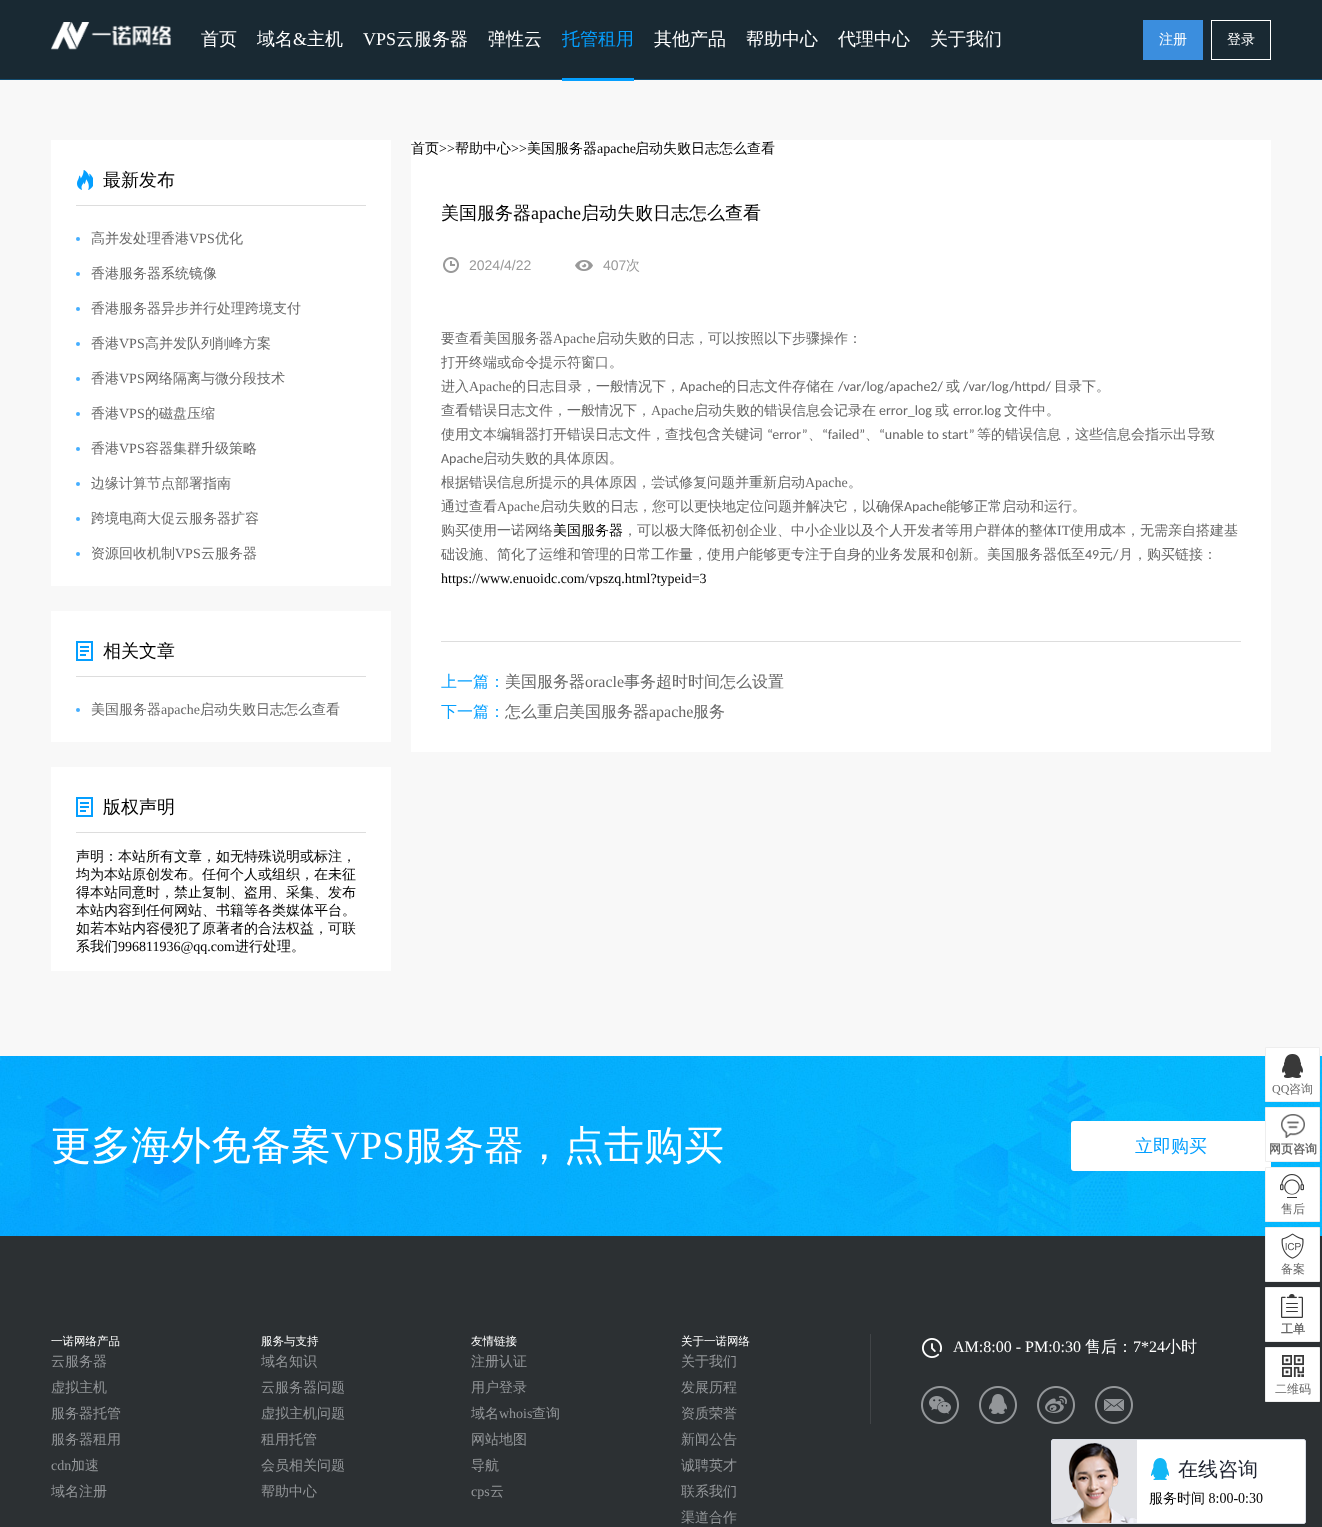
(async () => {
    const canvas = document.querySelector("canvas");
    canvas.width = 1322;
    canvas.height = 1527;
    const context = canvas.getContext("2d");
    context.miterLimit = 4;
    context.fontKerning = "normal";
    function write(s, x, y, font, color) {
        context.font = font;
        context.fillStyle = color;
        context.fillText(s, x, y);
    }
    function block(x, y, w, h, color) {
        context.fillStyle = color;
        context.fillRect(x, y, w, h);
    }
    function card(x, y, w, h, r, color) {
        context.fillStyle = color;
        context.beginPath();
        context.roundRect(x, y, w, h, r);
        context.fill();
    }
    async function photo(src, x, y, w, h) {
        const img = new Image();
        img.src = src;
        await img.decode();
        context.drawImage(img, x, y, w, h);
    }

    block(0, 0, 1322, 1527, "rgb(248, 248, 248)");
    block(0, 0, 1322, 79, "rgb(25, 41, 51)");
    block(0, 79, 1322, 1, "rgb(19, 76, 112)");
    await photo("media/1.png", 51, 22, 120, 28);
    write("首页", 201, 45, "500 18px WenQuanYi Zen Hei", "rgb(255, 255, 255)");
    write("域名", 257, 45, "500 18px WenQuanYi Zen Hei", "rgb(255, 255, 255)");
    write("&", 293, 45, "18px Liberation Serif", "rgb(255, 255, 255)");
    write("主机", 307, 45, "500 18px WenQuanYi Zen Hei", "rgb(255, 255, 255)");
    write("VPS", 363, 45, "18px Liberation Serif", "rgb(255, 255, 255)");
    write("云服务器", 396, 45, "500 18px WenQuanYi Zen Hei", "rgb(255, 255, 255)");
    write("弹性云", 488, 45, "500 18px WenQuanYi Zen Hei", "rgb(255, 255, 255)");
    write("托管租用", 562, 45, "500 18px WenQuanYi Zen Hei", "rgb(5, 159, 255)");
    block(562, 78, 72, 3, "rgb(5, 159, 255)");
    write("其他产品", 654, 45, "500 18px WenQuanYi Zen Hei", "rgb(255, 255, 255)");
    write("帮助中心", 746, 45, "500 18px WenQuanYi Zen Hei", "rgb(255, 255, 255)");
    write("代理中心", 838, 45, "500 18px WenQuanYi Zen Hei", "rgb(255, 255, 255)");
    write("关于我们", 930, 45, "500 18px WenQuanYi Zen Hei", "rgb(255, 255, 255)");
    block(1143, 20, 60, 40, "rgb(59, 142, 222)");
    write("注册", 1159, 44, "500 14px WenQuanYi Zen Hei", "rgb(255, 255, 255)");
    context.strokeStyle = "rgb(255, 255, 255)";
    context.strokeRect(1211.5, 20.5, 59, 39);
    write("登录", 1227, 44, "500 14px WenQuanYi Zen Hei", "rgb(255, 255, 255)");
    block(51, 140, 340, 446, "rgb(255, 255, 255)");
    block(76, 205, 290, 1, "rgb(221, 221, 221)");
    await photo("media/2.png", 77, 170, 16, 20);
    write("最新发布", 103, 186, "500 18px WenQuanYi Zen Hei", "rgb(0, 0, 0)");
    context.fillStyle = "rgb(69, 174, 255)";
    context.beginPath();
    context.arc(78, 239, 2, 0, Math.PI * 2);
    context.fill();
    write("高并发处理香港", 91, 243, "500 14px WenQuanYi Zen Hei", "rgb(102, 102, 102)");
    write("VPS", 189, 243, "14px Liberation Serif", "rgb(102, 102, 102)");
    write("优化", 215, 243, "500 14px WenQuanYi Zen Hei", "rgb(102, 102, 102)");
    context.fillStyle = "rgb(69, 174, 255)";
    context.beginPath();
    context.arc(78, 274, 2, 0, Math.PI * 2);
    context.fill();
    write("香港服务器系统镜像", 91, 278, "500 14px WenQuanYi Zen Hei", "rgb(102, 102, 102)");
    context.fillStyle = "rgb(69, 174, 255)";
    context.beginPath();
    context.arc(78, 309, 2, 0, Math.PI * 2);
    context.fill();
    write("香港服务器异步并行处理跨境支付", 91, 313, "500 14px WenQuanYi Zen Hei", "rgb(102, 102, 102)");
    context.fillStyle = "rgb(69, 174, 255)";
    context.beginPath();
    context.arc(78, 344, 2, 0, Math.PI * 2);
    context.fill();
    write("香港", 91, 348, "500 14px WenQuanYi Zen Hei", "rgb(102, 102, 102)");
    write("VPS", 119, 348, "14px Liberation Serif", "rgb(102, 102, 102)");
    write("高并发队列削峰方案", 145, 348, "500 14px WenQuanYi Zen Hei", "rgb(102, 102, 102)");
    context.fillStyle = "rgb(69, 174, 255)";
    context.beginPath();
    context.arc(78, 379, 2, 0, Math.PI * 2);
    context.fill();
    write("香港", 91, 383, "500 14px WenQuanYi Zen Hei", "rgb(102, 102, 102)");
    write("VPS", 119, 383, "14px Liberation Serif", "rgb(102, 102, 102)");
    write("网络隔离与微分段技术", 145, 383, "500 14px WenQuanYi Zen Hei", "rgb(102, 102, 102)");
    context.fillStyle = "rgb(69, 174, 255)";
    context.beginPath();
    context.arc(78, 414, 2, 0, Math.PI * 2);
    context.fill();
    write("香港", 91, 418, "500 14px WenQuanYi Zen Hei", "rgb(102, 102, 102)");
    write("VPS", 119, 418, "14px Liberation Serif", "rgb(102, 102, 102)");
    write("的磁盘压缩", 145, 418, "500 14px WenQuanYi Zen Hei", "rgb(102, 102, 102)");
    context.fillStyle = "rgb(69, 174, 255)";
    context.beginPath();
    context.arc(78, 449, 2, 0, Math.PI * 2);
    context.fill();
    write("香港", 91, 453, "500 14px WenQuanYi Zen Hei", "rgb(102, 102, 102)");
    write("VPS", 119, 453, "14px Liberation Serif", "rgb(102, 102, 102)");
    write("容器集群升级策略", 145, 453, "500 14px WenQuanYi Zen Hei", "rgb(102, 102, 102)");
    context.fillStyle = "rgb(69, 174, 255)";
    context.beginPath();
    context.arc(78, 484, 2, 0, Math.PI * 2);
    context.fill();
    write("边缘计算节点部署指南", 91, 488, "500 14px WenQuanYi Zen Hei", "rgb(102, 102, 102)");
    context.fillStyle = "rgb(69, 174, 255)";
    context.beginPath();
    context.arc(78, 519, 2, 0, Math.PI * 2);
    context.fill();
    write("跨境电商大促云服务器扩容", 91, 523, "500 14px WenQuanYi Zen Hei", "rgb(102, 102, 102)");
    context.fillStyle = "rgb(69, 174, 255)";
    context.beginPath();
    context.arc(78, 554, 2, 0, Math.PI * 2);
    context.fill();
    write("资源回收机制", 91, 558, "500 14px WenQuanYi Zen Hei", "rgb(102, 102, 102)");
    write("VPS", 175, 558, "14px Liberation Serif", "rgb(102, 102, 102)");
    write("云服务器", 201, 558, "500 14px WenQuanYi Zen Hei", "rgb(102, 102, 102)");
    block(51, 611, 340, 131, "rgb(255, 255, 255)");
    block(76, 676, 290, 1, "rgb(221, 221, 221)");
    await photo("media/3.png", 76, 641, 17, 20);
    write("相关文章", 103, 657, "500 18px WenQuanYi Zen Hei", "rgb(0, 0, 0)");
    context.fillStyle = "rgb(69, 174, 255)";
    context.beginPath();
    context.arc(78, 710, 2, 0, Math.PI * 2);
    context.fill();
    write("美国服务器", 91, 714, "500 14px WenQuanYi Zen Hei", "rgb(102, 102, 102)");
    write("apache", 161, 714, "14px Liberation Serif", "rgb(102, 102, 102)");
    write("启动失败日志怎么查看", 200, 714, "500 14px WenQuanYi Zen Hei", "rgb(102, 102, 102)");
    block(51, 767, 340, 204, "rgb(255, 255, 255)");
    block(76, 832, 290, 1, "rgb(221, 221, 221)");
    await photo("media/3.png", 76, 797, 17, 20);
    write("版权声明", 103, 813, "500 18px WenQuanYi Zen Hei", "rgb(0, 0, 0)");
    write("声明：本站所有文章，如无特殊说明或标注，", 76, 861, "500 14px WenQuanYi Zen Hei", "rgb(0, 0, 0)");
    write("均为本站原创发布。任何个人或组织，在未征", 76, 879, "500 14px WenQuanYi Zen Hei", "rgb(0, 0, 0)");
    write("得本站同意时，禁止复制、盗用、采集、发布", 76, 897, "500 14px WenQuanYi Zen Hei", "rgb(0, 0, 0)");
    write("本站内容到任何网站、书籍等各类媒体平台。", 76, 915, "500 14px WenQuanYi Zen Hei", "rgb(0, 0, 0)");
    write("如若本站内容侵犯了原著者的合法权益，可联", 76, 933, "500 14px WenQuanYi Zen Hei", "rgb(0, 0, 0)");
    write("系我们", 76, 951, "500 14px WenQuanYi Zen Hei", "rgb(0, 0, 0)");
    write("996811936@qq.com", 118, 951, "14px Liberation Serif", "rgb(0, 0, 0)");
    write("进行处理。", 235, 951, "500 14px WenQuanYi Zen Hei", "rgb(0, 0, 0)");
    block(411, 140, 860, 612, "rgb(255, 255, 255)");
    write("首页", 411, 153, "500 14px WenQuanYi Zen Hei", "rgb(0, 0, 0)");
    write(">>", 439, 153, "14px Liberation Serif", "rgb(0, 0, 0)");
    write("帮助中心", 455, 153, "500 14px WenQuanYi Zen Hei", "rgb(0, 0, 0)");
    write(">>", 511, 153, "14px Liberation Serif", "rgb(0, 0, 0)");
    write("美国服务器", 527, 153, "500 14px WenQuanYi Zen Hei", "rgb(0, 0, 0)");
    write("apache", 597, 153, "14px Liberation Serif", "rgb(0, 0, 0)");
    write("启动失败日志怎么查看", 635, 153, "500 14px WenQuanYi Zen Hei", "rgb(0, 0, 0)");
    write("美国服务器", 441, 219, "500 18px WenQuanYi Zen Hei", "rgb(0, 0, 0)");
    write("apache", 531, 219, "18px Liberation Serif", "rgb(0, 0, 0)");
    write("启动失败日志怎么查看", 581, 219, "500 18px WenQuanYi Zen Hei", "rgb(0, 0, 0)");
    await photo("media/4.png", 443, 257, 16, 16);
    write("2024/4/22", 469, 270, "14px Liberation Sans", "rgb(153, 153, 153)");
    await photo("media/5.png", 575, 260, 18, 11);
    write("407", 603, 270, "14px Liberation Sans", "rgb(153, 153, 153)");
    write("次", 626, 270, "500 14px WenQuanYi Zen Hei", "rgb(153, 153, 153)");
    write("要查看美国服务器", 441, 343, "500 14px WenQuanYi Zen Hei", "rgb(102, 102, 102)");
    write("Apache", 553, 343, "14px Liberation Serif", "rgb(102, 102, 102)");
    write("启动失败的日志，可以按照以下步骤操作：", 596, 343, "500 14px WenQuanYi Zen Hei", "rgb(102, 102, 102)");
    write("打开终端或命令提示符窗口。", 441, 367, "500 14px WenQuanYi Zen Hei", "rgb(102, 102, 102)");
    write("进入", 441, 391, "500 14px WenQuanYi Zen Hei", "rgb(102, 102, 102)");
    write("Apache", 469, 391, "14px Liberation Serif", "rgb(102, 102, 102)");
    write("的日志目录，一般情况下，", 512, 391, "500 14px WenQuanYi Zen Hei", "rgb(102, 102, 102)");
    write("Apache", 680, 391, "14px Carlito", "rgb(102, 102, 102)");
    write("的日志文件存储在", 722, 391, "500 14px WenQuanYi Zen Hei", "rgb(102, 102, 102)");
    write("/var/log/apache2/", 838, 391, "14px Carlito", "rgb(102, 102, 102)");
    write("或", 946, 391, "500 14px WenQuanYi Zen Hei", "rgb(102, 102, 102)");
    write("/var/log/httpd/", 963, 391, "14px Carlito", "rgb(102, 102, 102)");
    write("目录下。", 1054, 391, "500 14px WenQuanYi Zen Hei", "rgb(102, 102, 102)");
    write("查看错误日志文件，一般情况下，", 441, 415, "500 14px WenQuanYi Zen Hei", "rgb(102, 102, 102)");
    write("Apache", 651, 415, "14px Liberation Serif", "rgb(102, 102, 102)");
    write("启动失败的错误信息会记录在", 694, 415, "500 14px WenQuanYi Zen Hei", "rgb(102, 102, 102)");
    write("error_log", 879, 415, "14px Carlito", "rgb(102, 102, 102)");
    write("或", 935, 415, "500 14px WenQuanYi Zen Hei", "rgb(102, 102, 102)");
    write("error.log", 953, 415, "14px Carlito", "rgb(102, 102, 102)");
    write("文件中。", 1004, 415, "500 14px WenQuanYi Zen Hei", "rgb(102, 102, 102)");
    write("使用文本编辑器打开错误日志文件，查找包含关键词", 441, 439, "500 14px WenQuanYi Zen Hei", "rgb(102, 102, 102)");
    write("“error”", 767, 439, "14px Carlito", "rgb(102, 102, 102)");
    write("、", 808, 439, "500 14px WenQuanYi Zen Hei", "rgb(102, 102, 102)");
    write("“failed”", 822, 439, "14px Carlito", "rgb(102, 102, 102)");
    write("、", 865, 439, "500 14px WenQuanYi Zen Hei", "rgb(102, 102, 102)");
    write("“unable to start”", 879, 439, "14px Carlito", "rgb(102, 102, 102)");
    write("等的错误信息，这些信息会指示出导致", 977, 439, "500 14px WenQuanYi Zen Hei", "rgb(102, 102, 102)");
    write("Apache", 441, 463, "14px Carlito", "rgb(102, 102, 102)");
    write("启动失败的具体原因。", 483, 463, "500 14px WenQuanYi Zen Hei", "rgb(102, 102, 102)");
    write("根据错误信息所提示的具体原因，尝试修复问题并重新启动", 441, 487, "500 14px WenQuanYi Zen Hei", "rgb(102, 102, 102)");
    write("Apache", 805, 487, "14px Liberation Serif", "rgb(102, 102, 102)");
    write("。", 848, 487, "500 14px WenQuanYi Zen Hei", "rgb(102, 102, 102)");
    write("通过查看", 441, 511, "500 14px WenQuanYi Zen Hei", "rgb(102, 102, 102)");
    write("Apache", 497, 511, "14px Liberation Serif", "rgb(102, 102, 102)");
    write("启动失败的日志，您可以更快地定位问题并解决它，以确保", 540, 511, "500 14px WenQuanYi Zen Hei", "rgb(102, 102, 102)");
    write("Apache", 904, 511, "14px Carlito", "rgb(102, 102, 102)");
    write("能够正常启动和运行。", 946, 511, "500 14px WenQuanYi Zen Hei", "rgb(102, 102, 102)");
    write("购买使用一诺网络", 441, 535, "500 14px WenQuanYi Zen Hei", "rgb(102, 102, 102)");
    write("美国服务器", 553, 535, "500 14px WenQuanYi Zen Hei", "rgb(0, 0, 0)");
    write("，可以极大降低初创企业、中小企业以及个人开发者等用户群体的整体", 623, 535, "500 14px WenQuanYi Zen Hei", "rgb(102, 102, 102)");
    write("IT", 1057, 535, "14px Liberation Serif", "rgb(102, 102, 102)");
    write("使用成本，无需亲自搭建基", 1070, 535, "500 14px WenQuanYi Zen Hei", "rgb(102, 102, 102)");
    write("础设施、简化了运维和管理的日常工作量，使用户能够更专注于自身的业务发展和创新。美国服务器低至", 441, 559, "500 14px WenQuanYi Zen Hei", "rgb(102, 102, 102)");
    write("49", 1085, 559, "14px Carlito", "rgb(102, 102, 102)");
    write("元", 1099, 559, "500 14px WenQuanYi Zen Hei", "rgb(102, 102, 102)");
    write("/", 1113, 559, "14px Carlito", "rgb(102, 102, 102)");
    write("月，购买链接：", 1119, 559, "500 14px WenQuanYi Zen Hei", "rgb(102, 102, 102)");
    write("https://www.enuoidc.com/vpszq.html?typeid=3", 441, 583, "14px Liberation Serif", "rgb(0, 0, 0)");
    block(441, 641, 800, 1, "rgb(221, 221, 221)");
    write("上一篇：", 441, 687, "500 16px WenQuanYi Zen Hei", "rgb(5, 159, 255)");
    write("美国服务器", 505, 687, "500 16px WenQuanYi Zen Hei", "rgb(102, 102, 102)");
    write("oracle", 585, 687, "16px Liberation Serif", "rgb(102, 102, 102)");
    write("事务超时时间怎么设置", 624, 687, "500 16px WenQuanYi Zen Hei", "rgb(102, 102, 102)");
    write("下一篇：", 441, 717, "500 16px WenQuanYi Zen Hei", "rgb(5, 159, 255)");
    write("怎么重启美国服务器", 505, 717, "500 16px WenQuanYi Zen Hei", "rgb(102, 102, 102)");
    write("apache", 649, 717, "16px Liberation Serif", "rgb(102, 102, 102)");
    write("服务", 693, 717, "500 16px WenQuanYi Zen Hei", "rgb(102, 102, 102)");
    await photo("media/6.png", 0, 1056, 1322, 180);
    write("更多海外免备案", 51, 1159, "500 40px WenQuanYi Zen Hei", "rgb(255, 255, 255)");
    write("VPS", 331, 1159, "40px Liberation Serif", "rgb(255, 255, 255)");
    write("服务器，点击购买", 404, 1159, "500 40px WenQuanYi Zen Hei", "rgb(255, 255, 255)");
    card(1071, 1121, 200, 50, 3, "rgb(255, 255, 255)");
    write("立即购买", 1135, 1152, "500 18px WenQuanYi Zen Hei", "rgb(5, 159, 255)");
    context.fillStyle = "rgb(255, 255, 255)";
    context.beginPath();
    context.rect(1265.5, 1047.5, 54, 54);
    context.fill();
    context.strokeStyle = "rgb(238, 238, 238)";
    context.stroke();
    await photo("media/7.png", 1282, 1054, 21, 24);
    write("QQ", 1272, 1093, "12px Liberation Serif", "rgb(102, 102, 102)");
    write("咨询", 1289, 1093, "500 12px WenQuanYi Zen Hei", "rgb(102, 102, 102)");
    context.fillStyle = "rgb(255, 255, 255)";
    context.beginPath();
    context.rect(1265.5, 1107.5, 54, 54);
    context.fill();
    context.stroke();
    await photo("media/8.png", 1281, 1114, 24, 24);
    write("网页咨询", 1269, 1153, "bold 12px WenQuanYi Zen Hei", "rgb(102, 102, 102)");
    context.fillStyle = "rgb(255, 255, 255)";
    context.beginPath();
    context.rect(1265.5, 1167.5, 54, 54);
    context.fill();
    context.stroke();
    await photo("media/9.png", 1280, 1174, 24, 24);
    write("售后", 1281, 1213, "500 12px WenQuanYi Zen Hei", "rgb(102, 102, 102)");
    block(0, 1236, 1322, 291, "rgb(44, 48, 51)");
    context.fillStyle = "rgb(255, 255, 255)";
    context.beginPath();
    context.rect(1265.5, 1227.5, 54, 54);
    context.fill();
    context.stroke();
    await photo("media/10.png", 1281, 1233, 23, 26);
    write("备案", 1281, 1273, "500 12px WenQuanYi Zen Hei", "rgb(102, 102, 102)");
    context.fillStyle = "rgb(255, 255, 255)";
    context.beginPath();
    context.rect(1265.5, 1287.5, 54, 54);
    context.fill();
    context.stroke();
    await photo("media/11.png", 1281, 1294, 22, 24);
    write("工单", 1281, 1333, "bold 12px WenQuanYi Zen Hei", "rgb(102, 102, 102)");
    context.fillStyle = "rgb(255, 255, 255)";
    context.beginPath();
    context.rect(1265.5, 1347.5, 54, 54);
    context.fill();
    context.stroke();
    await photo("media/12.png", 1282, 1355, 22, 22);
    write("二维码", 1275, 1393, "500 12px WenQuanYi Zen Hei", "rgb(102, 102, 102)");
    write("一诺网络产品", 51, 1345, "500 11.5px WenQuanYi Zen Hei", "rgb(255, 255, 255)");
    write("云服务器", 51, 1366, "500 14px WenQuanYi Zen Hei", "rgb(147, 150, 153)");
    write("虚拟主机", 51, 1392, "500 14px WenQuanYi Zen Hei", "rgb(147, 150, 153)");
    write("服务器托管", 51, 1418, "500 14px WenQuanYi Zen Hei", "rgb(147, 150, 153)");
    write("服务器租用", 51, 1444, "500 14px WenQuanYi Zen Hei", "rgb(147, 150, 153)");
    write("cdn", 51, 1470, "14px Liberation Serif", "rgb(147, 150, 153)");
    write("加速", 71, 1470, "500 14px WenQuanYi Zen Hei", "rgb(147, 150, 153)");
    write("域名注册", 51, 1496, "500 14px WenQuanYi Zen Hei", "rgb(147, 150, 153)");
    write("服务与支持", 261, 1345, "500 11.5px WenQuanYi Zen Hei", "rgb(255, 255, 255)");
    write("域名知识", 261, 1366, "500 14px WenQuanYi Zen Hei", "rgb(147, 150, 153)");
    write("云服务器问题", 261, 1392, "500 14px WenQuanYi Zen Hei", "rgb(147, 150, 153)");
    write("虚拟主机问题", 261, 1418, "500 14px WenQuanYi Zen Hei", "rgb(147, 150, 153)");
    write("租用托管", 261, 1444, "500 14px WenQuanYi Zen Hei", "rgb(147, 150, 153)");
    write("会员相关问题", 261, 1470, "500 14px WenQuanYi Zen Hei", "rgb(147, 150, 153)");
    write("帮助中心", 261, 1496, "500 14px WenQuanYi Zen Hei", "rgb(147, 150, 153)");
    write("友情链接", 471, 1345, "500 11.5px WenQuanYi Zen Hei", "rgb(255, 255, 255)");
    write("注册认证", 471, 1366, "500 14px WenQuanYi Zen Hei", "rgb(147, 150, 153)");
    write("用户登录", 471, 1392, "500 14px WenQuanYi Zen Hei", "rgb(147, 150, 153)");
    write("域名", 471, 1418, "500 14px WenQuanYi Zen Hei", "rgb(147, 150, 153)");
    write("whois", 499, 1418, "14px Liberation Serif", "rgb(147, 150, 153)");
    write("查询", 532, 1418, "500 14px WenQuanYi Zen Hei", "rgb(147, 150, 153)");
    write("网站地图", 471, 1444, "500 14px WenQuanYi Zen Hei", "rgb(147, 150, 153)");
    write("导航", 471, 1470, "500 14px WenQuanYi Zen Hei", "rgb(147, 150, 153)");
    write("cps", 471, 1496, "14px Liberation Serif", "rgb(147, 150, 153)");
    write("云", 490, 1496, "500 14px WenQuanYi Zen Hei", "rgb(147, 150, 153)");
    write("关于一诺网络", 681, 1345, "500 11.5px WenQuanYi Zen Hei", "rgb(255, 255, 255)");
    write("关于我们", 681, 1366, "500 14px WenQuanYi Zen Hei", "rgb(147, 150, 153)");
    write("发展历程", 681, 1392, "500 14px WenQuanYi Zen Hei", "rgb(147, 150, 153)");
    write("资质荣誉", 681, 1418, "500 14px WenQuanYi Zen Hei", "rgb(147, 150, 153)");
    write("新闻公告", 681, 1444, "500 14px WenQuanYi Zen Hei", "rgb(147, 150, 153)");
    write("诚聘英才", 681, 1470, "500 14px WenQuanYi Zen Hei", "rgb(147, 150, 153)");
    write("联系我们", 681, 1496, "500 14px WenQuanYi Zen Hei", "rgb(147, 150, 153)");
    write("渠道合作", 681, 1522, "500 14px WenQuanYi Zen Hei", "rgb(147, 150, 153)");
    block(870, 1334, 1, 90, "rgb(65, 68, 71)");
    await photo("media/13.png", 922, 1338, 20, 20);
    write("AM:8:00 - PM:0:30", 953, 1352, "16px Liberation Serif", "rgb(255, 255, 255)");
    write("售后：", 1085, 1352, "500 16px WenQuanYi Zen Hei", "rgb(255, 255, 255)");
    write("7*24", 1133, 1352, "16px Liberation Serif", "rgb(255, 255, 255)");
    write("小时", 1165, 1352, "500 16px WenQuanYi Zen Hei", "rgb(255, 255, 255)");
    await photo("media/14.png", 921, 1386, 38, 38);
    await photo("media/15.png", 979, 1386, 38, 38);
    await photo("media/16.png", 1037, 1386, 38, 38);
    await photo("media/17.png", 1095, 1386, 38, 38);
    await photo("media/18.png", 1051, 1439, 255, 85);
})();
